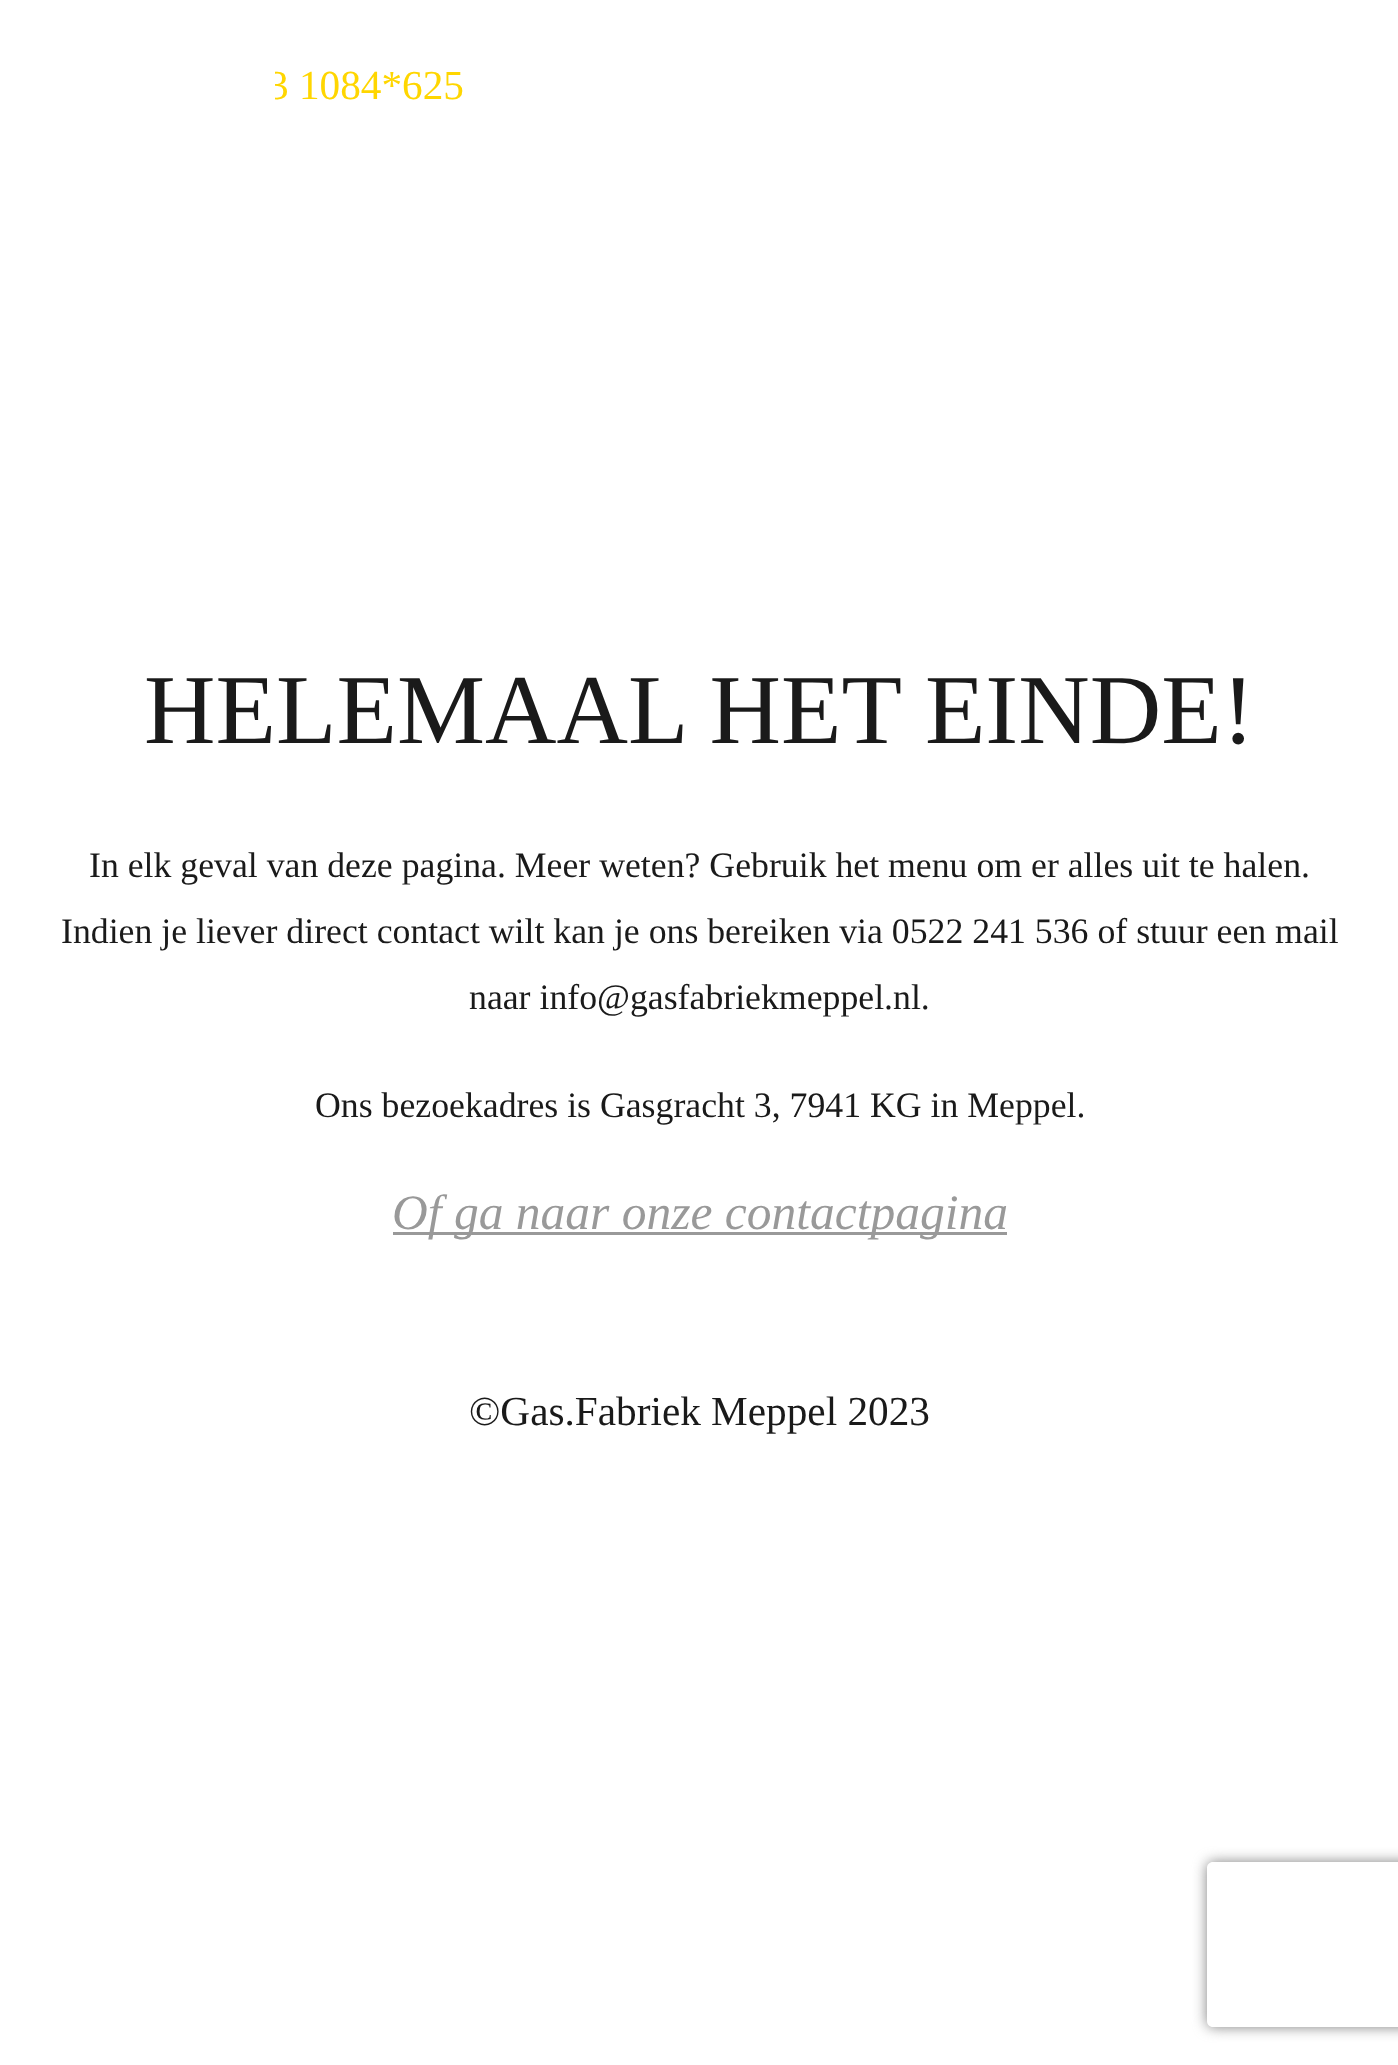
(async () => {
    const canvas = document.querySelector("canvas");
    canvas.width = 1398;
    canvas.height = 2065;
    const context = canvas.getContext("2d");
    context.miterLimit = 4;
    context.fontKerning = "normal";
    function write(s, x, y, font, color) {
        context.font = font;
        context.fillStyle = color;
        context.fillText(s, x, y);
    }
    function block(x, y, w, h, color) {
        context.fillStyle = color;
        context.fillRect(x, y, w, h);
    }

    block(0, 0, 1398, 2065, "rgb(255, 255, 255)");
    write("3 1084*625", 268, 99, "41.25px Liberation Serif", "rgb(255, 214, 0)");
    block(270, 71, 5, 29, "rgb(255, 255, 255)");
    write("HELEMAAL HET EINDE!", 144, 743, "99px Liberation Serif", "rgb(26, 26, 26)");
    write("In elk geval van deze pagina. Meer weten? Gebruik het menu om er alles uit te halen.", 89, 877, "35.75px Liberation Serif", "rgb(26, 26, 26)");
    write("Indien je liever direct contact wilt kan je ons bereiken via 0522 241 536 of stuur een mail", 61, 943, "35.75px Liberation Serif", "rgb(26, 26, 26)");
    write("naar info@gasfabriekmeppel.nl.", 469, 1009, "35.75px Liberation Serif", "rgb(26, 26, 26)");
    write("Ons bezoekadres is Gasgracht 3, 7941 KG in Meppel.", 315, 1117, "35.75px Liberation Serif", "rgb(26, 26, 26)");
    block(393, 1232, 614, 3, "rgb(153, 153, 153)");
    write("Of ga naar onze contactpagina", 392, 1229, "italic 49.5px Liberation Serif", "rgb(153, 153, 153)");
    write("©Gas.Fabriek Meppel 2023", 469, 1425, "41.25px Liberation Serif", "rgb(26, 26, 26)");
    context.save();
    context.beginPath();
    context.moveTo(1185, 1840);
    context.lineTo(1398, 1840);
    context.lineTo(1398, 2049);
    context.lineTo(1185, 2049);
    context.closePath();
    context.moveTo(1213, 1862);
    context.lineTo(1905, 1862);
    context.bezierCurveTo(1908.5, 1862, 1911, 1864.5, 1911, 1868);
    context.lineTo(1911, 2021);
    context.bezierCurveTo(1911, 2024.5, 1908.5, 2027, 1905, 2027);
    context.lineTo(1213, 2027);
    context.bezierCurveTo(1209.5, 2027, 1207, 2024.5, 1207, 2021);
    context.lineTo(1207, 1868);
    context.bezierCurveTo(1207, 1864.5, 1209.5, 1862, 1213, 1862);
    context.closePath();
    context.clip("evenodd");
    context.fillStyle = "rgb(128, 128, 128)";
    context.filter = "blur(7px)";
    context.beginPath();
    context.roundRect(1207, 1862, 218, 165, 6);
    context.fill();
    context.filter = "none";
    context.restore();
})();
